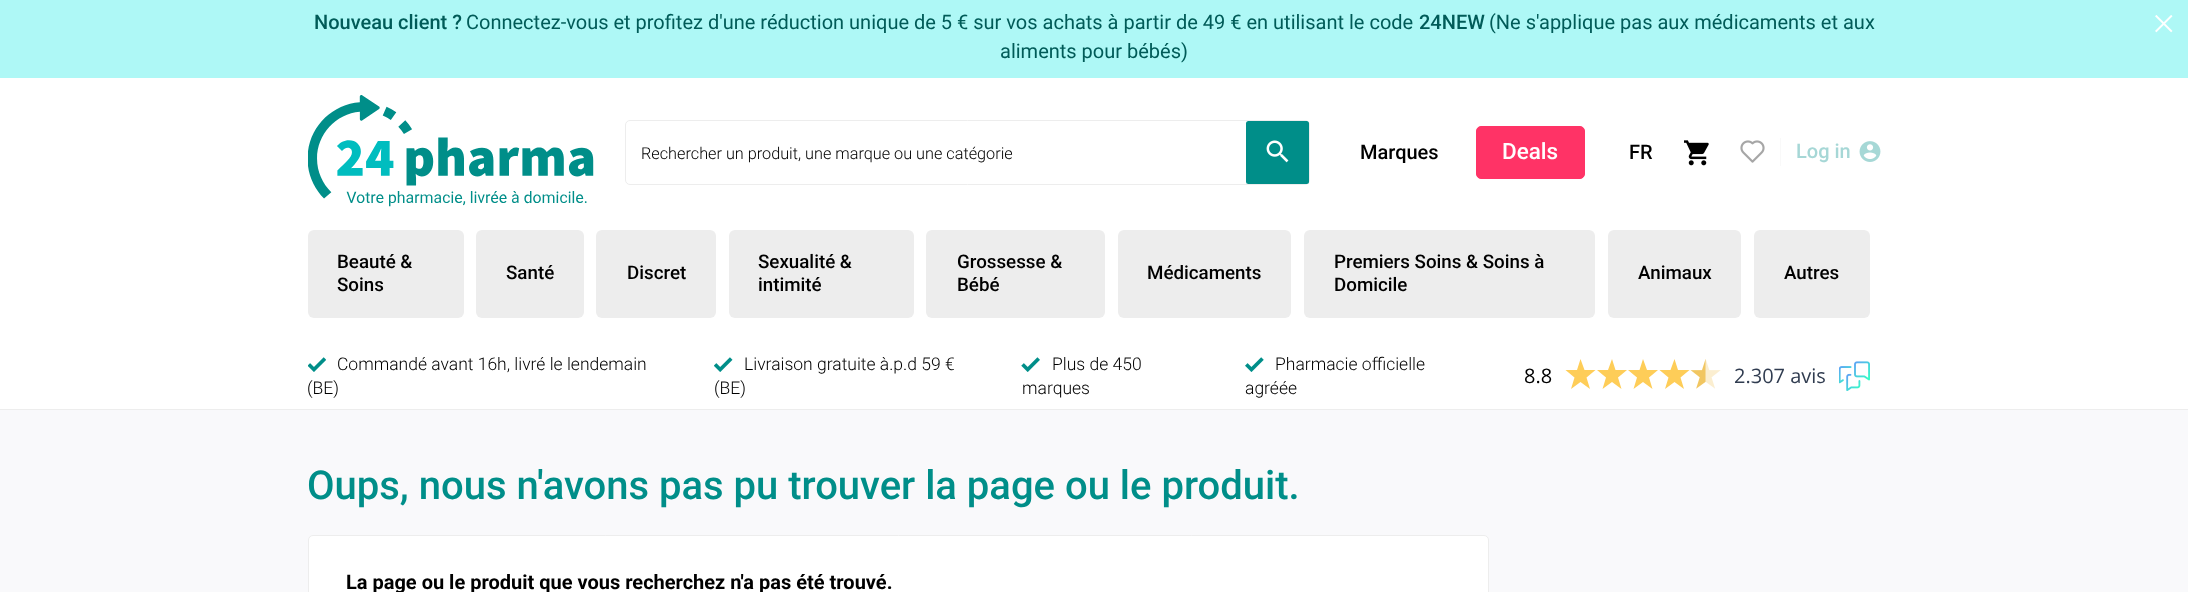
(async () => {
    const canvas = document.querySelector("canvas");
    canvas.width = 2188;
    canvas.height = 592;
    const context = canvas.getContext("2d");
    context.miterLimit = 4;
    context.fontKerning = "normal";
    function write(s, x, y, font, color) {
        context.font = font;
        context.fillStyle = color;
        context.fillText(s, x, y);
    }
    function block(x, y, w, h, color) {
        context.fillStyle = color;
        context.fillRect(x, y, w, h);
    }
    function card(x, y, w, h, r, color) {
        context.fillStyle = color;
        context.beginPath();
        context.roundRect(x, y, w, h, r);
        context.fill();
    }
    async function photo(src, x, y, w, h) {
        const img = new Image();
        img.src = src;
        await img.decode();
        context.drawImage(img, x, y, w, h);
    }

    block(0, 0, 2188, 592, "rgb(249, 249, 251)");
    block(0, 0, 2188, 78, "rgb(174, 248, 246)");
    write("Nouveau client ?", 314, 29, "500 20px Roboto", "rgb(0, 91, 88)");
    write("Connectez-vous et profitez d'une réduction unique de 5 € sur vos achats à partir de 49 € en utilisant le code", 466, 29, "20px Roboto", "rgb(0, 91, 88)");
    write("24NEW", 1419, 29, "500 20px Roboto", "rgb(0, 91, 88)");
    write("(Ne s'applique pas aux médicaments et aux", 1489, 29, "20px Roboto", "rgb(0, 91, 88)");
    write("aliments pour bébés)", 1000, 58, "20px Roboto", "rgb(0, 91, 88)");
    await photo("media/1.png", 2155, 15, 18, 18);
    block(0, 78, 2188, 331, "rgb(255, 255, 255)");
    await photo("media/2.png", 308, 95, 286, 112);
    context.beginPath();
    context.roundRect(625.5, 120.5, 684, 64, 4.5);
    context.strokeStyle = "rgb(237, 237, 237)";
    context.stroke();
    write("Rechercher un produit, une marque ou une catégorie", 641, 159, "300 16.25px Roboto", "rgb(0, 0, 0)");
    card(1246, 121, 63, 63, 2.5, "rgb(0, 142, 137)");
    await photo("media/3.png", 1266, 140, 23, 23);
    write("Marques", 1360, 159, "500 20px Roboto", "rgb(0, 0, 0)");
    context.fillStyle = "rgb(255, 51, 102)";
    context.beginPath();
    context.roundRect(1476.5, 126.5, 108, 52, 4.5);
    context.fill();
    context.strokeStyle = "rgb(255, 51, 102)";
    context.stroke();
    write("Deals", 1502, 159, "500 22.5px Roboto", "rgb(255, 255, 255)");
    write("FR", 1629, 159, "500 20px Roboto", "rgb(0, 0, 0)");
    await photo("media/4.png", 1684, 140, 25, 26);
    await photo("media/5.png", 1740, 140, 25, 23);
    block(1780, 138, 1, 28, "rgb(249, 249, 249)");
    write("Log in", 1796, 158, "500 20px Roboto", "rgb(166, 215, 214)");
    await photo("media/6.png", 1859, 141, 22, 21);
    card(308, 230, 156, 88, 6, "rgb(237, 237, 237)");
    write("Beauté &", 337, 268, "500 18.75px Roboto", "rgb(0, 0, 0)");
    write("Soins", 337, 291, "500 18.75px Roboto", "rgb(0, 0, 0)");
    card(476, 230, 108, 88, 6, "rgb(237, 237, 237)");
    write("Santé", 506, 279, "500 18.75px Roboto", "rgb(0, 0, 0)");
    card(596, 230, 120, 88, 6, "rgb(237, 237, 237)");
    write("Discret", 627, 279, "500 18.75px Roboto", "rgb(0, 0, 0)");
    card(729, 230, 185, 88, 6, "rgb(237, 237, 237)");
    write("Sexualité &", 758, 268, "500 18.75px Roboto", "rgb(0, 0, 0)");
    write("intimité", 758, 291, "500 18.75px Roboto", "rgb(0, 0, 0)");
    card(926, 230, 179, 88, 6, "rgb(237, 237, 237)");
    write("Grossesse &", 957, 268, "500 18.75px Roboto", "rgb(0, 0, 0)");
    write("Bébé", 957, 291, "500 18.75px Roboto", "rgb(0, 0, 0)");
    card(1118, 230, 173, 88, 6, "rgb(237, 237, 237)");
    write("Médicaments", 1147, 279, "500 18.75px Roboto", "rgb(0, 0, 0)");
    card(1304, 230, 291, 88, 6, "rgb(237, 237, 237)");
    write("Premiers Soins & Soins à", 1334, 268, "500 18.75px Roboto", "rgb(0, 0, 0)");
    write("Domicile", 1334, 291, "500 18.75px Roboto", "rgb(0, 0, 0)");
    card(1608, 230, 133, 88, 6, "rgb(237, 237, 237)");
    write("Animaux", 1638, 279, "500 18.75px Roboto", "rgb(0, 0, 0)");
    card(1754, 230, 116, 88, 6, "rgb(237, 237, 237)");
    write("Autres", 1784, 279, "500 18.75px Roboto", "rgb(0, 0, 0)");
    block(0, 409, 2188, 1, "rgb(237, 237, 237)");
    await photo("media/7.png", 308, 357, 18, 15);
    write("Commandé avant 16h, livré le lendemain", 337, 370, "300 17.5px Roboto", "rgb(0, 0, 0)");
    write("(BE)", 307, 394, "300 17.5px Roboto", "rgb(0, 0, 0)");
    await photo("media/8.png", 714, 357, 19, 15);
    write("Livraison gratuite à.p.d 59 €", 744, 370, "300 17.5px Roboto", "rgb(0, 0, 0)");
    write("(BE)", 714, 394, "300 17.5px Roboto", "rgb(0, 0, 0)");
    await photo("media/9.png", 1021, 357, 19, 15);
    write("Plus de 450", 1052, 370, "300 17.5px Roboto", "rgb(0, 0, 0)");
    write("marques", 1022, 394, "300 17.5px Roboto", "rgb(0, 0, 0)");
    await photo("media/10.png", 1245, 357, 19, 15);
    write("Pharmacie officielle", 1275, 370, "300 17.5px Roboto", "rgb(0, 0, 0)");
    write("agréée", 1245, 394, "300 17.5px Roboto", "rgb(0, 0, 0)");
    write("8.8", 1524, 383, "20px Open Sans", "rgb(0, 0, 0)");
    context.fillStyle = "rgb(254, 205, 88)";
    context.beginPath();
    context.moveTo(1590, 389);
    context.lineTo(1586.5, 377.5);
    context.lineTo(1595.5, 370);
    context.lineTo(1584.5, 370);
    context.lineTo(1580.5, 359);
    context.lineTo(1577, 370);
    context.lineTo(1565.5, 370);
    context.lineTo(1574.5, 377.5);
    context.lineTo(1571, 389);
    context.lineTo(1580.5, 382);
    context.closePath();
    context.moveTo(1621.5, 389);
    context.lineTo(1618, 377.5);
    context.lineTo(1627, 370);
    context.lineTo(1615.5, 370);
    context.lineTo(1612, 359);
    context.lineTo(1608, 370);
    context.lineTo(1597, 370);
    context.lineTo(1606, 377.5);
    context.lineTo(1602.5, 389);
    context.lineTo(1612, 382);
    context.closePath();
    context.fill();
    context.beginPath();
    context.moveTo(1652.5, 389);
    context.lineTo(1649, 377.5);
    context.lineTo(1658, 370);
    context.lineTo(1647, 370);
    context.lineTo(1643, 359);
    context.lineTo(1639.5, 370);
    context.lineTo(1628, 370);
    context.lineTo(1637, 377.5);
    context.lineTo(1633.5, 389);
    context.lineTo(1643, 382);
    context.closePath();
    context.moveTo(1684, 389);
    context.lineTo(1680.5, 377.5);
    context.lineTo(1689.5, 370);
    context.lineTo(1678, 370);
    context.lineTo(1674.5, 359);
    context.lineTo(1670.5, 370);
    context.lineTo(1659.5, 370);
    context.lineTo(1668.5, 377.5);
    context.lineTo(1665, 389);
    context.lineTo(1674.5, 382);
    context.closePath();
    context.fill();
    await photo("media/11.png", 1690, 359, 31, 30);
    write("2.307 avis", 1734, 383, "20px Open Sans", "rgb(48, 60, 80)");
    await photo("media/12.png", 1839, 361, 31, 30);
    write("Oups, nous n'avons pas pu trouver la page ou le produit.", 307, 499, "500 40px Roboto", "rgb(0, 142, 137)");
    context.fillStyle = "rgb(255, 255, 255)";
    context.beginPath();
    context.roundRect(308.5, 535.5, 1180, 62, 4.5);
    context.fill();
    context.strokeStyle = "rgb(237, 237, 237)";
    context.stroke();
    write("La page ou le produit que vous recherchez n'a pas été trouvé.", 346, 589, "bold 20px Roboto", "rgb(0, 0, 0)");
})();
